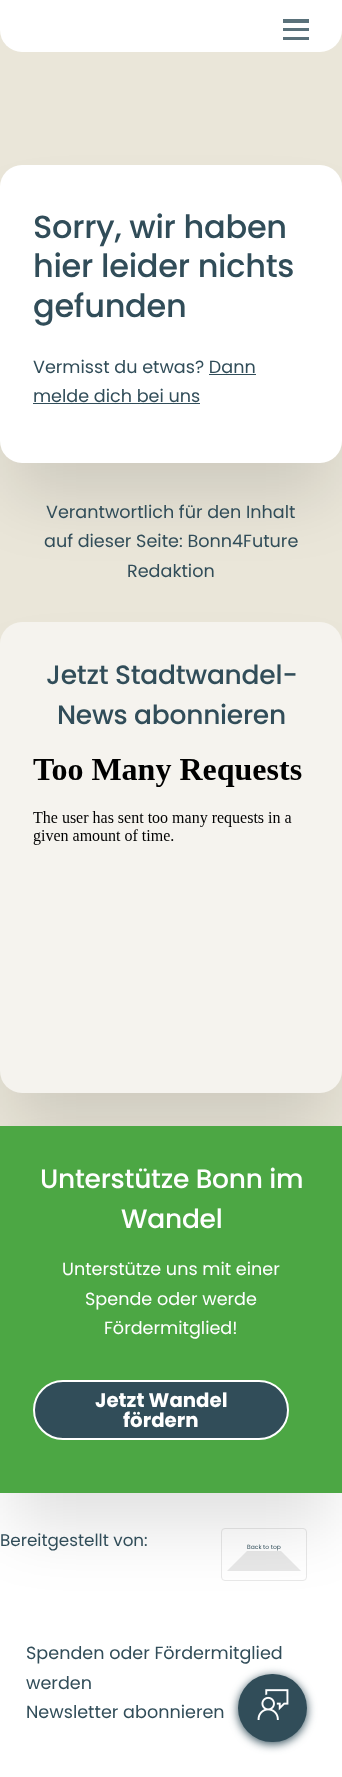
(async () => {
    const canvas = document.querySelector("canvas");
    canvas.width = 342;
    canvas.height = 1777;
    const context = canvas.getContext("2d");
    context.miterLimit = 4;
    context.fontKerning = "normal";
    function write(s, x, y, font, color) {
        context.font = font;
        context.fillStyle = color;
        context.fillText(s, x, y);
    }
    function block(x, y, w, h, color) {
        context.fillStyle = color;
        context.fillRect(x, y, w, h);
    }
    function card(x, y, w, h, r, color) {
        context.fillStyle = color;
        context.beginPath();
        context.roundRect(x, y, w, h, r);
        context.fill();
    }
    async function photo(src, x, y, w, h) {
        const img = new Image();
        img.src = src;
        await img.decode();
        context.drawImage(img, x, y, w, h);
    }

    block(0, 0, 342, 1777, "rgb(234, 230, 217)");
    context.fillStyle = "rgb(255, 255, 255)";
    context.beginPath();
    context.roundRect(0, 0, 342, 52, [0, 0, 22, 22]);
    context.fill();
    block(283, 28, 26, 3, "rgb(90, 113, 122)");
    block(283, 19, 26, 4, "rgb(90, 113, 122)");
    block(283, 37, 26, 3, "rgb(90, 113, 122)");
    context.fillStyle = "rgba(0, 0, 0, 0.12)";
    context.filter = "blur(33px)";
    context.beginPath();
    context.roundRect(11, 220, 320, 276, 11);
    context.fill();
    context.filter = "none";
    card(0, 165, 342, 298, 22, "rgb(255, 255, 255)");
    context.letterSpacing = "-0.3px";
    write("Sorry, wir haben", 33, 238, "500 32px Poppins", "rgb(49, 77, 89)");
    write("hier leider nichts", 33, 277, "500 32px Poppins", "rgb(49, 77, 89)");
    write("gefunden", 33, 317, "500 32px Poppins", "rgb(49, 77, 89)");
    context.letterSpacing = "0px";
    write("Vermisst du etwas? Dann", 33, 373, "17.6px Poppins", "rgb(49, 77, 89)");
    write("melde dich bei uns", 33, 402, "17.6px Poppins", "rgb(49, 77, 89)");
    block(209, 374, 47, 1, "rgb(49, 77, 89)");
    block(33, 403, 167, 1, "rgb(49, 77, 89)");
    write("Verantwortlich für den Inhalt", 46, 518, "17.6px Poppins", "rgb(49, 77, 89)");
    write("auf dieser Seite: Bonn4Future", 44, 547, "17.6px Poppins", "rgb(49, 77, 89)");
    write("Redaktion", 127, 577, "17.6px Poppins", "rgb(49, 77, 89)");
    context.fillStyle = "rgba(0, 0, 0, 0.12)";
    context.filter = "blur(33px)";
    context.beginPath();
    context.roundRect(11, 677, 320, 449, 11);
    context.fill();
    context.filter = "none";
    card(0, 622, 342, 471, 22, "rgb(245, 243, 238)");
    context.letterSpacing = "-0.25px";
    write("Jetzt Stadtwandel-", 46, 684, "500 26.5px Poppins", "rgb(49, 77, 89)");
    write("News abonnieren", 57, 724, "500 26.5px Poppins", "rgb(49, 77, 89)");
    await photo("media/1.png", 33, 759, 269, 86);
    block(0, 1493, 342, 284, "rgb(255, 255, 255)");
    context.beginPath();
    context.roundRect(221.5, 1528.5, 85, 52, 3.5);
    context.strokeStyle = "rgb(232, 232, 232)";
    context.stroke();
    context.fillStyle = "rgb(232, 232, 232)";
    context.beginPath();
    context.moveTo(301, 1571);
    context.lineTo(227, 1571);
    context.lineTo(247, 1551);
    context.lineTo(281, 1551);
    context.closePath();
    context.fill();
    context.fillStyle = "rgba(0, 0, 0, 0.12)";
    context.filter = "blur(33px)";
    context.beginPath();
    context.rect(11, 1181, 320, 345);
    context.fill();
    context.filter = "none";
    block(0, 1126, 342, 367, "rgb(76, 167, 68)");
    write("Unterstütze Bonn im", 40, 1188, "500 26.5px Poppins", "rgb(255, 255, 255)");
    write("Wandel", 121, 1228, "500 26.5px Poppins", "rgb(255, 255, 255)");
    context.letterSpacing = "0px";
    write("Unterstütze uns mit einer", 62, 1275, "17.6px Poppins", "rgb(255, 255, 255)");
    write("Spende oder werde", 85, 1305, "17.6px Poppins", "rgb(255, 255, 255)");
    write("Fördermitglied!", 104, 1334, "17.6px Poppins", "rgb(255, 255, 255)");
    context.fillStyle = "rgb(49, 77, 89)";
    context.beginPath();
    context.roundRect(34, 1381, 254, 58, 29);
    context.fill();
    context.strokeStyle = "rgb(255, 255, 255)";
    context.lineWidth = 2;
    context.stroke();
    write("Jetzt Wandel", 95, 1407, "bold 19.75px Poppins", "rgb(255, 255, 255)");
    write("fördern", 123, 1427, "bold 19.75px Poppins", "rgb(255, 255, 255)");
    write("Bereitgestellt von:", 0, 1546, "16.75px Poppins", "rgb(49, 77, 89)");
    write("Spenden oder Fördermitglied", 26, 1659, "17.6px Poppins", "rgb(49, 77, 89)");
    write("werden", 26, 1689, "17.6px Poppins", "rgb(49, 77, 89)");
    write("Newsletter abonnieren", 26, 1718, "17.6px Poppins", "rgb(49, 77, 89)");
    write("Back to top", 247, 1549, "6px Poppins", "rgb(49, 77, 89)");
    context.filter = "blur(5px)";
    context.beginPath();
    context.roundRect(238, 1676, 69, 68, 34);
    context.fill();
    context.filter = "none";
    card(238, 1674, 69, 68, 34, "rgb(49, 77, 89)");
    await photo("media/2.png", 257, 1689, 32, 31);
})();
